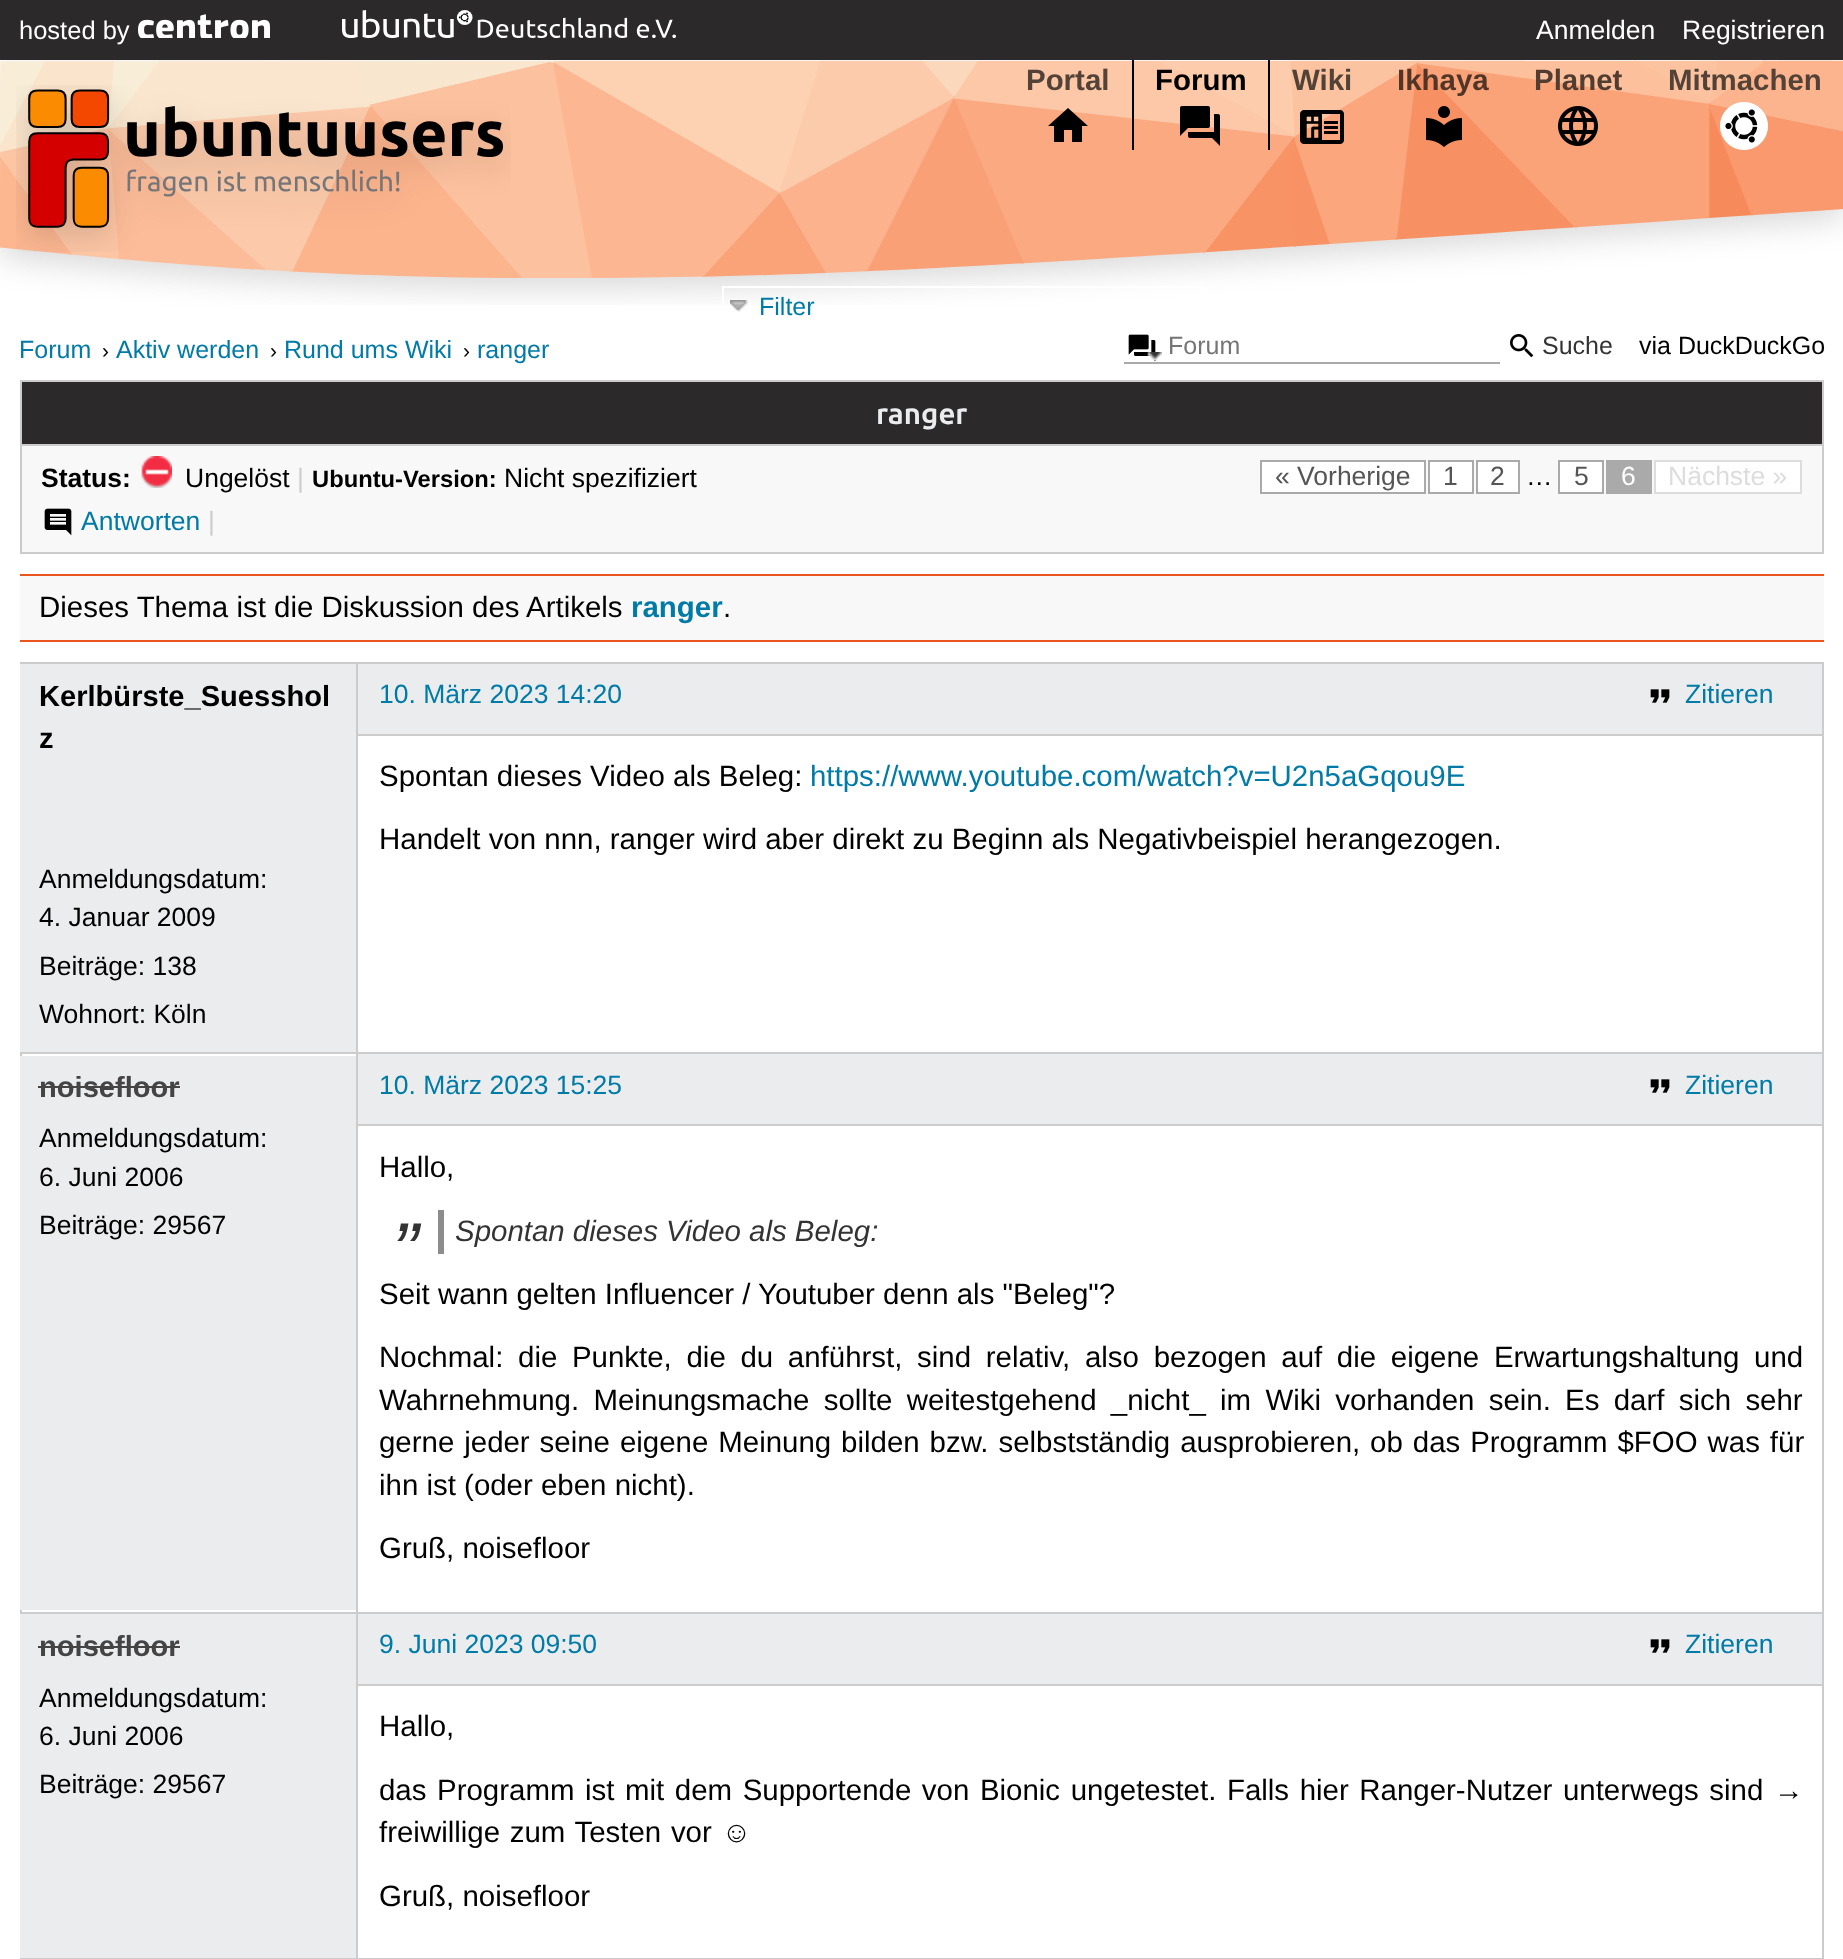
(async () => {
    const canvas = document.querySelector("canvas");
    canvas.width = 1843;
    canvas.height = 1959;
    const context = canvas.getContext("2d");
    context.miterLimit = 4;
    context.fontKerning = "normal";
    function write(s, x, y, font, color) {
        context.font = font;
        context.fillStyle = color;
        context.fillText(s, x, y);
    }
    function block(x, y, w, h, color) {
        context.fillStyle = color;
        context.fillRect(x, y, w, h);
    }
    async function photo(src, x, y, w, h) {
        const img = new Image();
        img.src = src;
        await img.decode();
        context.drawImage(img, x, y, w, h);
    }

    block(0, 0, 1843, 1959, "rgb(255, 255, 255)");
    block(0, 0, 1843, 60, "rgb(43, 41, 41)");
    write("hosted by", 19, 39, "25.5px Liberation Sans", "rgb(255, 255, 255)");
    await photo("media/1.png", 138, 14, 132, 24);
    await photo("media/2.png", 342, 10, 334, 28);
    write("Anmelden", 1536, 39, "26.5px Liberation Sans", "rgb(255, 255, 255)");
    write("Registrieren", 1682, 39, "26.5px Liberation Sans", "rgb(255, 255, 255)");
    await photo("media/3.png", 0, 60, 1843, 245);
    await photo("media/4.png", 16, 85, 495, 167);
    write("Portal", 1026, 90, "bold 29.45px Liberation Sans", "rgb(83, 66, 55)");
    context.fillStyle = "rgb(0, 0, 0)";
    context.beginPath();
    context.moveTo(1064, 142);
    context.lineTo(1064, 130);
    context.lineTo(1072, 130);
    context.lineTo(1072, 142);
    context.lineTo(1082, 142);
    context.lineTo(1082, 126);
    context.lineTo(1088, 126);
    context.lineTo(1068, 108);
    context.lineTo(1048, 126);
    context.lineTo(1054, 126);
    context.lineTo(1054, 142);
    context.closePath();
    context.fill();
    block(1268, 60, 2, 90, "rgb(0, 0, 0)");
    block(1132, 60, 2, 90, "rgb(0, 0, 0)");
    write("Forum", 1155, 90, "bold 29.45px Liberation Sans", "rgb(0, 0, 0)");
    await photo("media/5.png", 1180, 106, 40, 40);
    write("Wiki", 1292, 90, "bold 29.45px Liberation Sans", "rgb(83, 66, 55)");
    await photo("media/6.png", 1300, 110, 44, 34);
    write("Ikhaya", 1397, 90, "bold 29.45px Liberation Sans", "rgb(82, 53, 39)");
    await photo("media/7.png", 1426, 106, 36, 41);
    write("Planet", 1534, 90, "bold 29.45px Liberation Sans", "rgb(83, 61, 49)");
    await photo("media/8.png", 1558, 106, 40, 40);
    write("Mitmachen", 1668, 90, "bold 29.45px Liberation Sans", "rgb(83, 66, 55)");
    await photo("media/9.png", 1720, 102, 48, 48);
    context.strokeStyle = "rgb(255, 255, 255)";
    context.lineWidth = 2;
    context.strokeRect(723, 287, 482, 44);
    await photo("media/10.png", 730, 300, 18, 12);
    write("Filter", 759, 315, "25px Liberation Sans", "rgb(0, 122, 166)");
    write("Forum", 19, 358, "25px Liberation Sans", "rgb(0, 122, 166)");
    write("›", 102, 358, "21px Liberation Sans", "rgb(0, 0, 0)");
    write("Aktiv werden", 116, 358, "25px Liberation Sans", "rgb(0, 122, 166)");
    write("›", 270, 358, "21px Liberation Sans", "rgb(0, 0, 0)");
    write("Rund ums Wiki", 284, 358, "25px Liberation Sans", "rgb(0, 122, 166)");
    write("›", 463, 358, "21px Liberation Sans", "rgb(0, 0, 0)");
    write("ranger", 477, 358, "25px Liberation Sans", "rgb(0, 122, 166)");
    await photo("media/11.png", 1128, 334, 28, 28);
    block(1124, 362, 376, 2, "rgb(170, 170, 170)");
    write("Forum", 1168, 354, "25px Liberation Sans", "rgb(117, 117, 117)");
    await photo("media/12.png", 1510, 334, 24, 24);
    write("Suche", 1542, 354, "25px Liberation Sans", "rgb(51, 51, 51)");
    write("via DuckDuckGo", 1639, 354, "25px Liberation Sans", "rgb(0, 0, 0)");
    await photo("media/13.png", 1147, 352, 15, 8);
    block(22, 446, 1800, 106, "rgb(248, 248, 248)");
    context.strokeStyle = "rgb(204, 204, 204)";
    context.strokeRect(21, 381, 1802, 172);
    block(22, 382, 1800, 62, "rgb(43, 41, 41)");
    block(22, 444, 1800, 2, "rgb(204, 204, 204)");
    write("ranger", 876, 424, "bold 29.45px Ubuntu", "rgb(234, 236, 238)");
    write("Status:", 41, 487, "bold 26.5px Liberation Sans", "rgb(0, 0, 0)");
    await photo("media/14.png", 141, 456, 31, 32);
    write("Ungelöst", 185, 487, "26.5px Liberation Sans", "rgb(0, 0, 0)");
    write("|", 297, 487, "26.5px Liberation Sans", "rgb(204, 204, 204)");
    write("Ubuntu-Version:", 312, 487, "bold 23.75px Liberation Sans", "rgb(0, 0, 0)");
    write("Nicht spezifiziert", 504, 487, "26.5px Liberation Sans", "rgb(0, 0, 0)");
    context.fillStyle = "rgb(255, 255, 255)";
    context.beginPath();
    context.rect(1261, 461, 164, 32);
    context.fill();
    context.strokeStyle = "rgb(170, 170, 170)";
    context.stroke();
    write("« Vorherige", 1275, 485, "26.5px Liberation Sans", "rgb(85, 85, 85)");
    context.fillStyle = "rgb(255, 255, 255)";
    context.beginPath();
    context.rect(1429, 461, 44, 32);
    context.fill();
    context.stroke();
    write("1", 1443, 485, "26.5px Liberation Sans", "rgb(85, 85, 85)");
    context.fillStyle = "rgb(255, 255, 255)";
    context.beginPath();
    context.rect(1477, 461, 42, 32);
    context.fill();
    context.stroke();
    write("2", 1490, 485, "26.5px Liberation Sans", "rgb(85, 85, 85)");
    write("…", 1526, 485, "26.5px Liberation Sans", "rgb(0, 0, 0)");
    context.fillStyle = "rgb(255, 255, 255)";
    context.beginPath();
    context.rect(1559, 461, 44, 32);
    context.fill();
    context.stroke();
    write("5", 1574, 485, "26.5px Liberation Sans", "rgb(85, 85, 85)");
    block(1606, 460, 46, 34, "rgb(170, 170, 170)");
    write("6", 1621, 485, "26.5px Liberation Sans", "rgb(255, 255, 255)");
    context.beginPath();
    context.rect(1655, 461, 146, 32);
    context.fill();
    context.strokeStyle = "rgb(221, 221, 221)";
    context.stroke();
    write("Nächste »", 1668, 485, "26.5px Liberation Sans", "rgb(221, 221, 221)");
    await photo("media/15.png", 44, 508, 28, 28);
    write("Antworten", 81, 530, "26.5px Liberation Sans", "rgb(0, 122, 166)");
    write("|", 208, 530, "26.5px Liberation Sans", "rgb(204, 204, 204)");
    block(20, 576, 1804, 64, "rgb(248, 248, 248)");
    block(20, 574, 1804, 2, "rgb(233, 84, 32)");
    block(20, 640, 1804, 2, "rgb(233, 84, 32)");
    write("Dieses Thema ist die Diskussion des Artikels", 39, 617, "29.45px Liberation Sans", "rgb(0, 0, 0)");
    write("ranger", 631, 617, "bold 29.45px Liberation Sans", "rgb(0, 122, 166)");
    write(".", 723, 617, "29.45px Liberation Sans", "rgb(0, 0, 0)");
    block(20, 662, 1804, 2, "rgb(204, 204, 204)");
    block(1822, 662, 2, 1297, "rgb(204, 204, 204)");
    block(20, 1958, 1804, 1, "rgb(204, 204, 204)");
    block(20, 662, 2, 1297, "rgb(204, 204, 204)");
    block(20, 664, 336, 388, "rgb(234, 236, 238)");
    write("Kerlbürste_Suesshol", 39, 706, "bold 29.1px Liberation Sans", "rgb(0, 0, 0)");
    write("z", 39, 748, "bold 29.1px Liberation Sans", "rgb(0, 0, 0)");
    write("Anmeldungsdatum:", 39, 888, "26.5px Liberation Sans", "rgb(0, 0, 0)");
    write("4. Januar 2009", 39, 926, "26.5px Liberation Sans", "rgb(0, 0, 0)");
    write("Beiträge: 138", 39, 975, "26.5px Liberation Sans", "rgb(0, 0, 0)");
    write("Wohnort: Köln", 39, 1023, "26.5px Liberation Sans", "rgb(0, 0, 0)");
    block(358, 664, 1464, 70, "rgb(234, 236, 238)");
    block(358, 734, 1464, 2, "rgb(204, 204, 204)");
    write("10. März 2023 14:20", 379, 703, "26.5px Liberation Sans", "rgb(0, 122, 166)");
    await photo("media/16.png", 1650, 689, 20, 14);
    write("Zitieren", 1685, 703, "26.5px Liberation Sans", "rgb(0, 122, 166)");
    write("Spontan dieses Video als Beleg:", 379, 786, "29.45px Liberation Sans", "rgb(0, 0, 0)");
    write("https://www.youtube.com/watch?v=U2n5aGqou9E", 810, 786, "29.45px Liberation Sans", "rgb(0, 122, 166)");
    write("Handelt von nnn, ranger wird aber direkt zu Beginn als Negativbeispiel herangezogen.", 379, 849, "29.45px Liberation Sans", "rgb(0, 0, 0)");
    block(20, 1052, 1804, 2, "rgb(204, 204, 204)");
    block(20, 1612, 1804, 2, "rgb(204, 204, 204)");
    block(356, 1612, 2, 347, "rgb(204, 204, 204)");
    block(356, 662, 2, 952, "rgb(204, 204, 204)");
    block(20, 1056, 336, 554, "rgb(234, 236, 238)");
    write("noisefloor", 39, 1097, "bold 29.1px Liberation Sans", "rgb(68, 68, 68)");
    block(38, 1086, 142, 2, "rgb(68, 68, 68)");
    write("Anmeldungsdatum:", 39, 1147, "26.5px Liberation Sans", "rgb(0, 0, 0)");
    write("6. Juni 2006", 39, 1186, "26.5px Liberation Sans", "rgb(0, 0, 0)");
    write("Beiträge: 29567", 39, 1234, "26.5px Liberation Sans", "rgb(0, 0, 0)");
    block(358, 1054, 1464, 70, "rgb(234, 236, 238)");
    block(358, 1124, 1464, 2, "rgb(204, 204, 204)");
    write("10. März 2023 15:25", 379, 1094, "26.5px Liberation Sans", "rgb(0, 122, 166)");
    await photo("media/16.png", 1650, 1079, 20, 14);
    write("Zitieren", 1685, 1094, "26.5px Liberation Sans", "rgb(0, 122, 166)");
    write("Hallo,", 379, 1177, "29.45px Liberation Sans", "rgb(0, 0, 0)");
    block(438, 1210, 6, 44, "rgb(140, 140, 140)");
    write("„", 400, 1231, "italic 79px Liberation Sans", "rgb(51, 51, 51)");
    write("Spontan dieses Video als Beleg:", 455, 1241, "italic 29.45px Liberation Sans", "rgb(51, 51, 51)");
    write("Seit wann gelten Influencer / Youtuber denn als \"Beleg\"?", 379, 1304, "29.45px Liberation Sans", "rgb(0, 0, 0)");
    context.wordSpacing = "6.5px";
    write("Nochmal: die Punkte, die du anführst, sind relativ, also bezogen auf die eigene Erwartungshaltung und", 379, 1367, "29.45px Liberation Sans", "rgb(0, 0, 0)");
    context.wordSpacing = "6.1px";
    write("Wahrnehmung. Meinungsmache sollte weitestgehend _nicht_ im Wiki vorhanden sein. Es darf sich sehr", 379, 1410, "29.45px Liberation Sans", "rgb(0, 0, 0)");
    context.wordSpacing = "1.75px";
    write("gerne jeder seine eigene Meinung bilden bzw. selbstständig ausprobieren, ob das Programm $FOO was für", 379, 1452, "29.45px Liberation Sans", "rgb(0, 0, 0)");
    context.wordSpacing = "0px";
    write("ihn ist (oder eben nicht).", 379, 1495, "29.45px Liberation Sans", "rgb(0, 0, 0)");
    write("Gruß, noisefloor", 379, 1558, "29.45px Liberation Sans", "rgb(0, 0, 0)");
    block(20, 1614, 336, 344, "rgb(234, 236, 238)");
    write("noisefloor", 39, 1656, "bold 29.1px Liberation Sans", "rgb(68, 68, 68)");
    block(38, 1646, 142, 2, "rgb(68, 68, 68)");
    write("Anmeldungsdatum:", 39, 1707, "26.5px Liberation Sans", "rgb(0, 0, 0)");
    write("6. Juni 2006", 39, 1745, "26.5px Liberation Sans", "rgb(0, 0, 0)");
    write("Beiträge: 29567", 39, 1793, "26.5px Liberation Sans", "rgb(0, 0, 0)");
    block(358, 1614, 1464, 70, "rgb(234, 236, 238)");
    block(358, 1684, 1464, 2, "rgb(204, 204, 204)");
    write("9. Juni 2023 09:50", 379, 1653, "26.5px Liberation Sans", "rgb(0, 122, 166)");
    await photo("media/16.png", 1650, 1639, 20, 14);
    write("Zitieren", 1685, 1653, "26.5px Liberation Sans", "rgb(0, 122, 166)");
    write("Hallo,", 379, 1736, "29.45px Liberation Sans", "rgb(0, 0, 0)");
    context.wordSpacing = "2.4px";
    write("das Programm ist mit dem Supportende von Bionic ungetestet. Falls hier Ranger-Nutzer unterwegs sind →", 379, 1800, "29.45px Liberation Sans", "rgb(0, 0, 0)");
    context.wordSpacing = "1.5px";
    write("freiwillige zum Testen vor ☺", 379, 1842, "29.45px Liberation Sans", "rgb(0, 0, 0)");
    context.wordSpacing = "0px";
    write("Gruß, noisefloor", 379, 1906, "29.45px Liberation Sans", "rgb(0, 0, 0)");
})();
